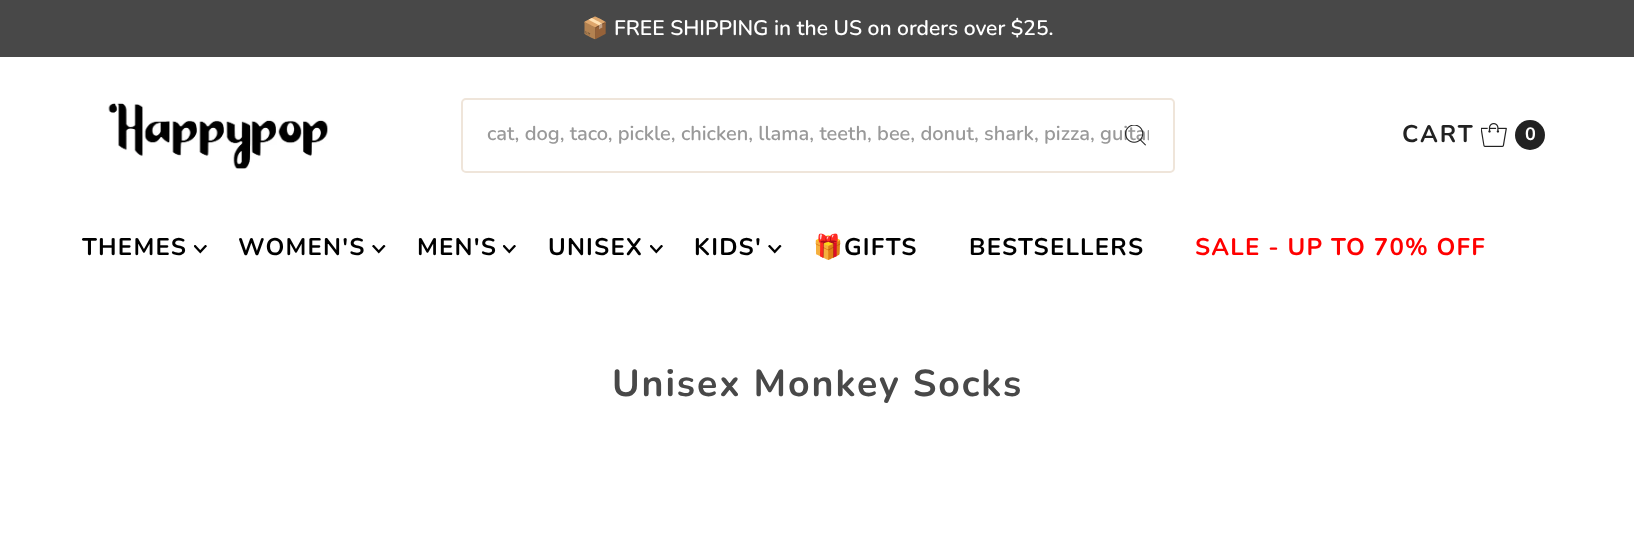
(async () => {
    const canvas = document.querySelector("canvas");
    canvas.width = 1634;
    canvas.height = 537;
    const context = canvas.getContext("2d");
    context.miterLimit = 4;
    context.fontKerning = "normal";
    function write(s, x, y, font, color) {
        context.font = font;
        context.fillStyle = color;
        context.fillText(s, x, y);
    }
    function block(x, y, w, h, color) {
        context.fillStyle = color;
        context.fillRect(x, y, w, h);
    }
    async function photo(src, x, y, w, h) {
        const img = new Image();
        img.src = src;
        await img.decode();
        context.drawImage(img, x, y, w, h);
    }

    block(0, 0, 1634, 537, "rgb(255, 255, 255)");
    block(0, 0, 1634, 57, "rgb(72, 72, 72)");
    write("📦", 582, 35, "bold 21px Noto Color Emoji", "rgb(255, 255, 255)");
    write("FREE SHIPPING in the US on orders over $25.", 614, 35, "600 21px Nunito", "rgb(255, 255, 255)");
    await photo("media/1.png", 108, 102, 220, 67);
    context.beginPath();
    context.roundRect(462, 99, 712, 73, 4);
    context.strokeStyle = "rgb(239, 229, 218)";
    context.lineWidth = 2;
    context.stroke();
    context.save();
    context.beginPath();
    context.rect(486, 122, 663, 27);
    context.clip();
    write("cat, dog, taco, pickle, chicken, llama, teeth, bee, donut, shark, pizza, guitar", 487, 140, "600 20px Nunito", "rgb(153, 153, 153)");
    context.restore();
    await photo("media/2.png", 1125, 125, 21, 21);
    context.letterSpacing = "2px";
    write("CART", 1402, 142, "bold 24px Nunito", "rgb(34, 34, 34)");
    await photo("media/3.png", 1481, 123, 26, 24);
    context.beginPath();
    context.arc(1530, 135, 15, 0, Math.PI * 2);
    context.fill();
    context.letterSpacing = "0px";
    write("0", 1525, 140, "bold 18px Nunito", "rgb(255, 255, 255)");
    context.letterSpacing = "1.2px";
    write("THEMES", 82, 255, "bold 24px Nunito", "rgb(0, 0, 0)");
    await photo("media/4.png", 194, 245, 13, 9);
    write("WOMEN'S", 238, 255, "bold 24px Nunito", "rgb(0, 0, 0)");
    await photo("media/5.png", 372, 245, 14, 9);
    write("MEN'S", 417, 255, "bold 24px Nunito", "rgb(0, 0, 0)");
    await photo("media/4.png", 503, 245, 13, 9);
    write("UNISEX", 548, 255, "bold 24px Nunito", "rgb(0, 0, 0)");
    await photo("media/4.png", 650, 245, 13, 9);
    write("KIDS'", 694, 255, "bold 24px Nunito", "rgb(0, 0, 0)");
    await photo("media/5.png", 768, 245, 14, 9);
    write("🎁", 813, 255, "bold 24px Noto Color Emoji", "rgb(0, 0, 0)");
    write("GIFTS", 844, 255, "bold 24px Nunito", "rgb(0, 0, 0)");
    write("BESTSELLERS", 969, 255, "bold 24px Nunito", "rgb(0, 0, 0)");
    write("SALE - UP TO 70% OFF", 1195, 255, "bold 24px Nunito", "rgb(255, 0, 0)");
    context.letterSpacing = "1.9px";
    write("Unisex Monkey Socks", 612, 396, "bold 37.5px Nunito", "rgb(72, 72, 72)");
})();
